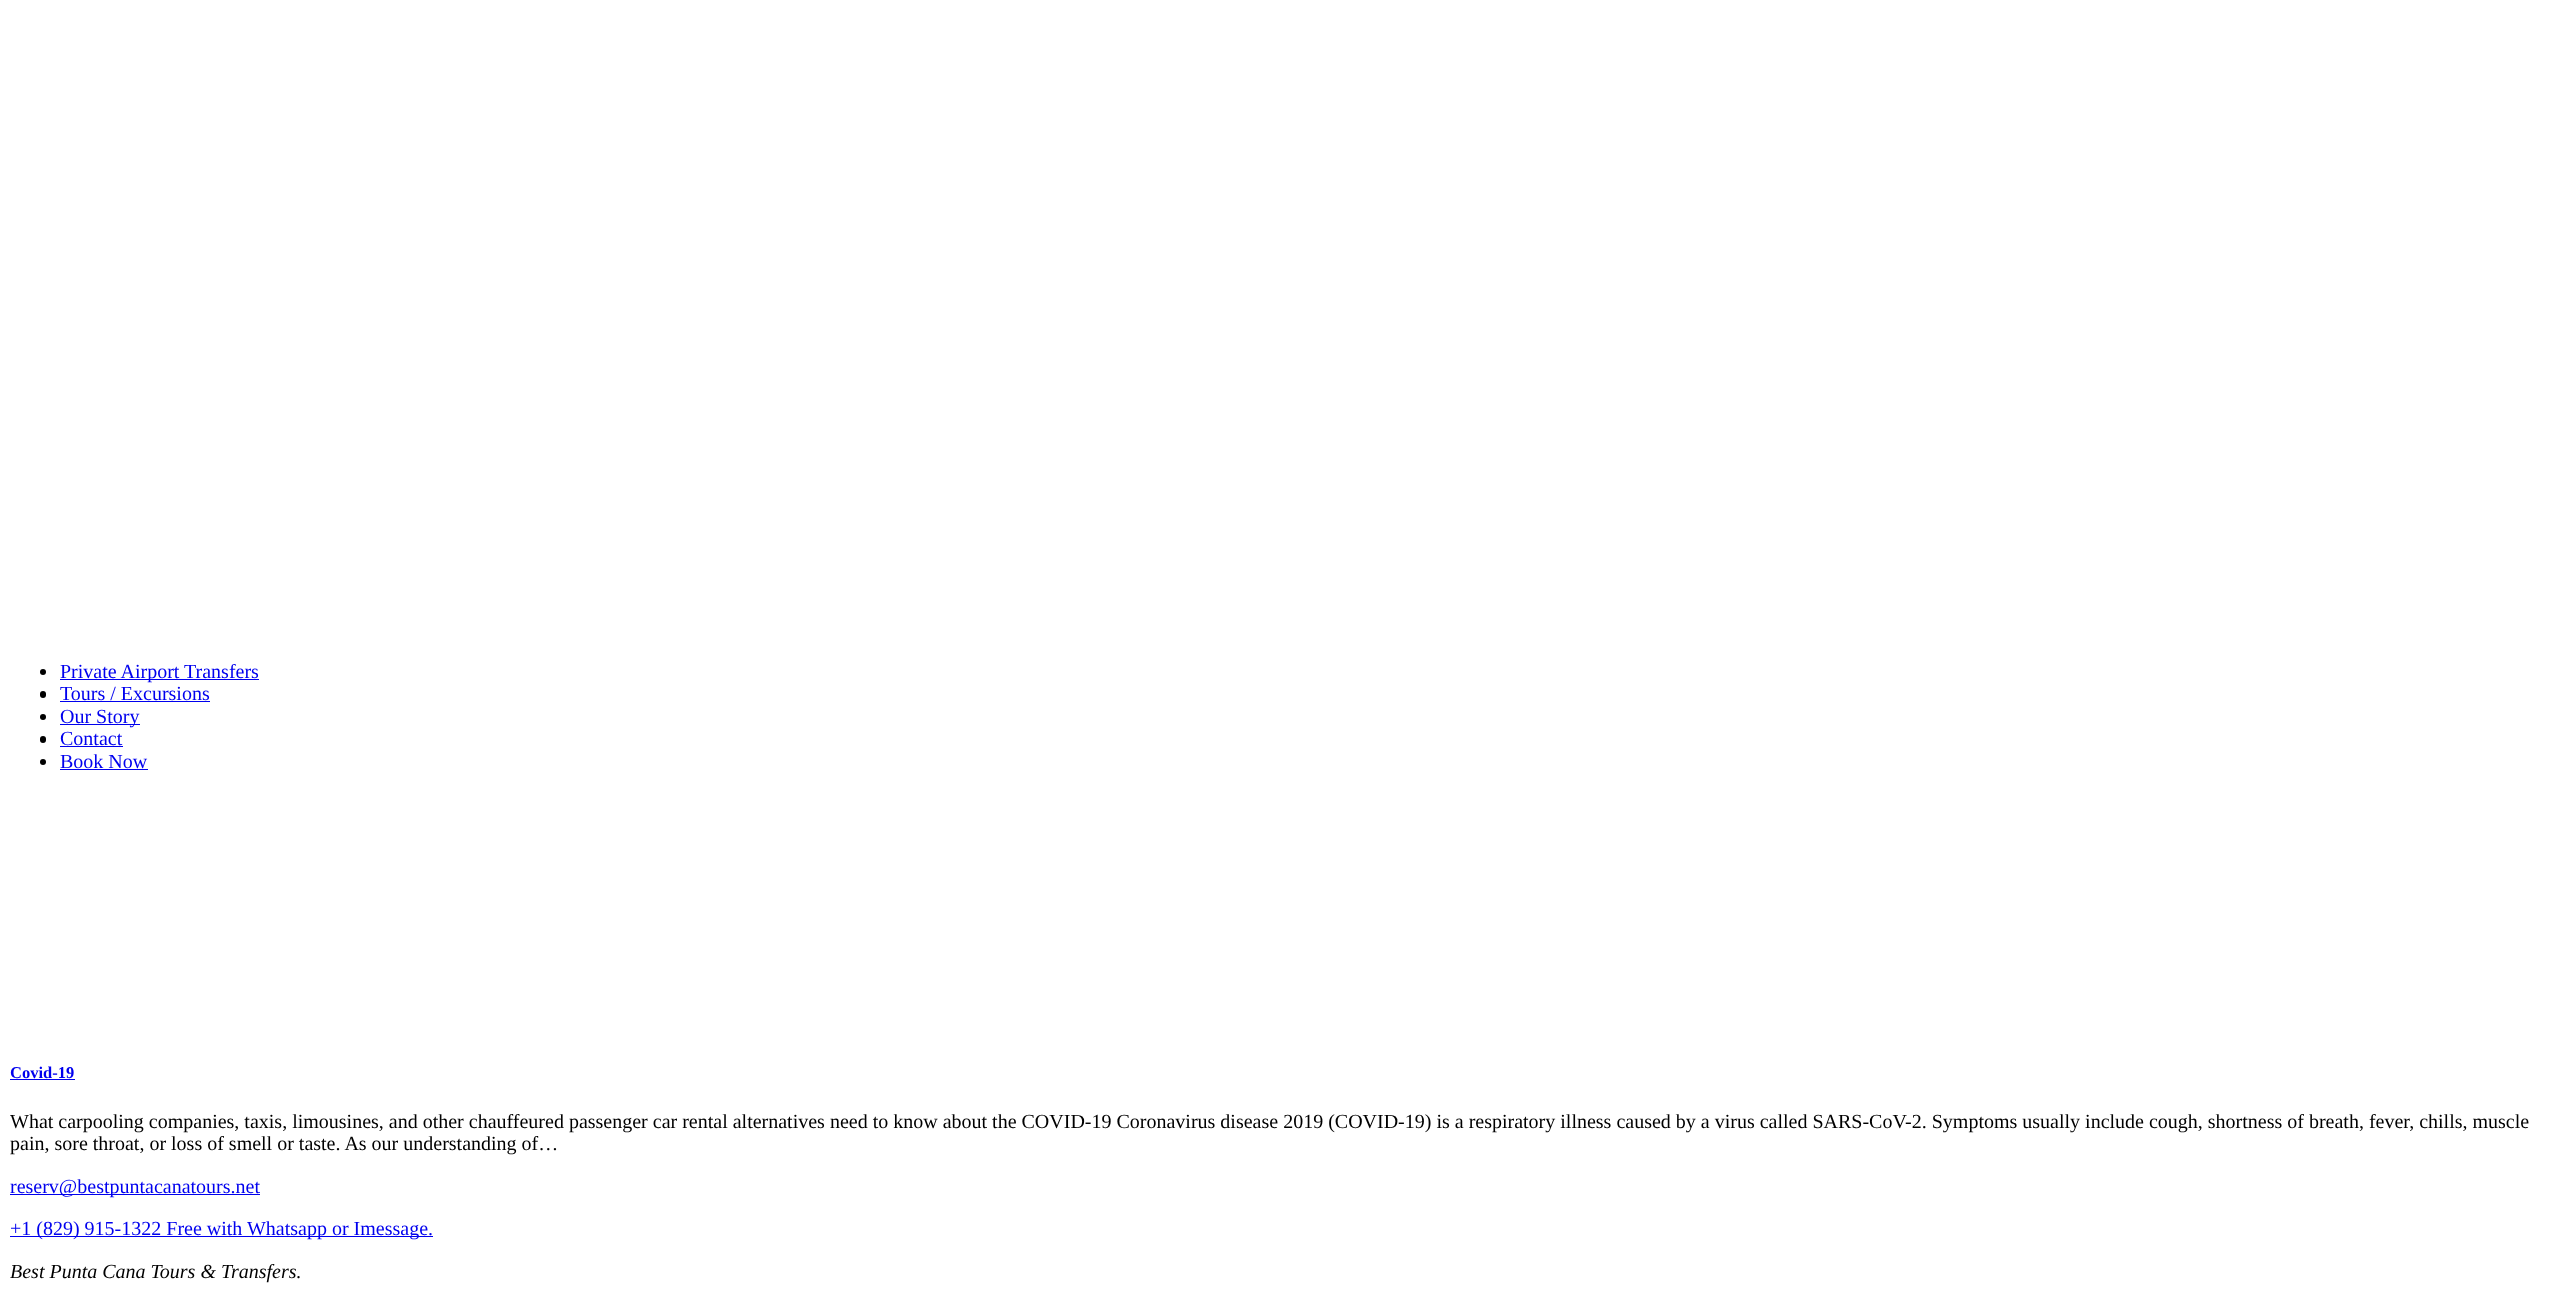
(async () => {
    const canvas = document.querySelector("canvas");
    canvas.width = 2562;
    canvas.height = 1291;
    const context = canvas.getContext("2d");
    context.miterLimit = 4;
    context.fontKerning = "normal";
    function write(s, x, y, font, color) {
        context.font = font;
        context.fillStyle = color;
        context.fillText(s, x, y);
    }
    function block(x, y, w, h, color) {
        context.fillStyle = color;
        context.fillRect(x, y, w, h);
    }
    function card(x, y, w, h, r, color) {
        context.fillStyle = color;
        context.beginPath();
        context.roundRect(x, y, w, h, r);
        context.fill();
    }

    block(0, 0, 2562, 1291, "rgb(255, 255, 255)");
    context.fillStyle = "rgb(0, 0, 0)";
    context.beginPath();
    context.arc(43, 672, 3, 0, Math.PI * 2);
    context.fill();
    block(60, 679, 199, 1, "rgb(0, 0, 238)");
    write("Private Airport Transfers", 60, 678, "20px Liberation Serif", "rgb(0, 0, 238)");
    card(40, 691, 6, 7, 3, "rgb(0, 0, 0)");
    write("Tours / Excursions", 60, 700, "20px Liberation Serif", "rgb(0, 0, 238)");
    block(60, 701, 150, 1, "rgb(0, 0, 238)");
    context.fillStyle = "rgb(0, 0, 0)";
    context.beginPath();
    context.arc(43, 717, 3, 0, Math.PI * 2);
    context.fill();
    block(60, 724, 80, 1, "rgb(0, 0, 238)");
    write("Our Story", 60, 723, "20px Liberation Serif", "rgb(0, 0, 238)");
    card(40, 736, 6, 7, 3, "rgb(0, 0, 0)");
    write("Contact", 60, 745, "20px Liberation Serif", "rgb(0, 0, 238)");
    block(60, 746, 63, 1, "rgb(0, 0, 238)");
    context.fillStyle = "rgb(0, 0, 0)";
    context.beginPath();
    context.arc(43, 762, 3, 0, Math.PI * 2);
    context.fill();
    write("Book Now", 60, 768, "20px Liberation Serif", "rgb(0, 0, 238)");
    block(60, 769, 88, 1, "rgb(0, 0, 238)");
    write("Covid-19", 10, 1078, "bold 16.5px Liberation Serif", "rgb(0, 0, 238)");
    block(10, 1079, 65, 1, "rgb(0, 0, 238)");
    write("What carpooling companies, taxis, limousines, and other chauffeured passenger car rental alternatives need to know about the COVID-19 Coronavirus disease 2019 (COVID-19) is a respiratory illness caused by a virus called SARS-CoV-2. Symptoms usually include cough, shortness of breath, fever, chills, muscle", 10, 1128, "20px Liberation Serif", "rgb(0, 0, 0)");
    write("pain, sore throat, or loss of smell or taste. As our understanding of…", 10, 1150, "20px Liberation Serif", "rgb(0, 0, 0)");
    block(10, 1194, 250, 1, "rgb(0, 0, 238)");
    write("reserv@bestpuntacanatours.net", 10, 1193, "20px Liberation Serif", "rgb(0, 0, 238)");
    block(10, 1236, 423, 1, "rgb(0, 0, 238)");
    write("+1 (829) 915-1322 Free with Whatsapp or Imessage.", 10, 1235, "20px Liberation Serif", "rgb(0, 0, 238)");
    write("Best Punta Cana Tours & Transfers.", 10, 1278, "italic 20px Liberation Serif", "rgb(0, 0, 0)");
})();
